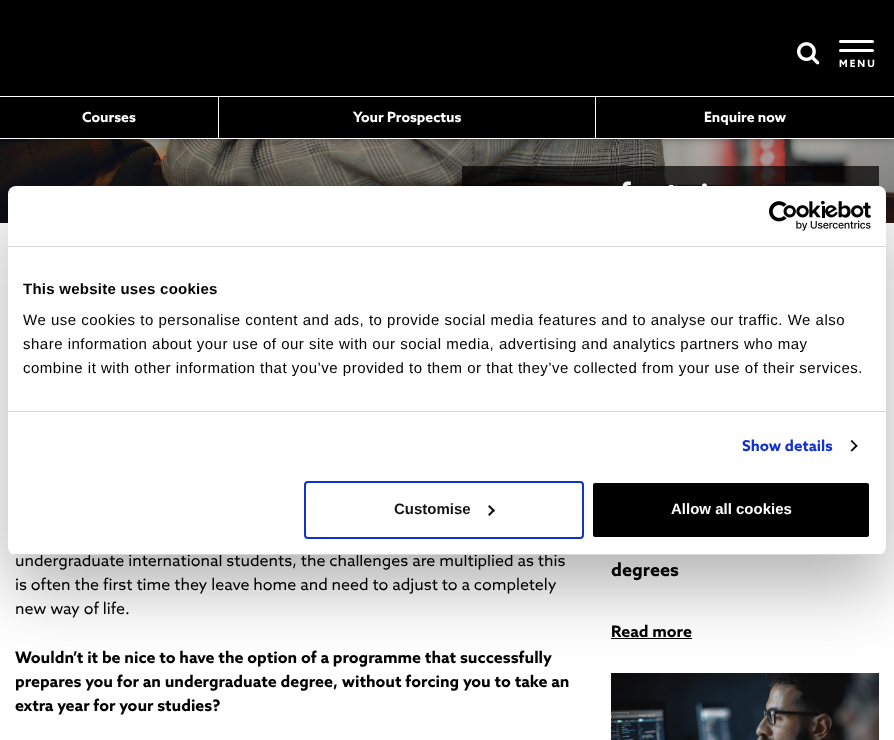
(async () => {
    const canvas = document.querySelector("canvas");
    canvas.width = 894;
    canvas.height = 740;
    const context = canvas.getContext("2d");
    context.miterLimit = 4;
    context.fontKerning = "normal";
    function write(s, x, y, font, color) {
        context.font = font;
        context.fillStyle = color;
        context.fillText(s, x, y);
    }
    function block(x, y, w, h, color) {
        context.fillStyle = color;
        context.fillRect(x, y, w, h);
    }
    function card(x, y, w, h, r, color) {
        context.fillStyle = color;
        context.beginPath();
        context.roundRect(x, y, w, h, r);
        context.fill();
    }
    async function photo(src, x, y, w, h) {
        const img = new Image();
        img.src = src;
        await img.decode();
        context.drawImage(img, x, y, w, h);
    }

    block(0, 0, 894, 740, "rgb(255, 255, 255)");
    await photo("media/2.png", 0, 139, 894, 84);
    context.fillStyle = "rgba(0, 0, 0, 0.12)";
    context.filter = "blur(5px)";
    context.beginPath();
    context.rect(0, 2, 894, 139);
    context.fill();
    context.filter = "none";
    context.fillStyle = "rgba(0, 0, 0, 0.16)";
    context.filter = "blur(2px)";
    context.beginPath();
    context.rect(0, 2, 894, 139);
    context.fill();
    context.filter = "none";
    block(0, 0, 894, 138, "rgb(0, 0, 0)");
    await photo("media/1.png", 797, 42, 23, 23);
    card(839, 40, 35, 3, 1.5, "rgb(255, 255, 255)");
    card(839, 49, 35, 3, 1.5, "rgb(255, 255, 255)");
    context.letterSpacing = "2px";
    write("MENU", 839, 67, "bold 10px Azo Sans", "rgb(255, 255, 255)");
    block(0, 96, 894, 1, "rgb(255, 255, 255)");
    block(0, 138, 894, 1, "rgb(255, 255, 255)");
    block(218, 97, 1, 41, "rgb(255, 255, 255)");
    context.letterSpacing = "0px";
    write("Courses", 82, 122, "bold 14px Azo Sans", "rgb(255, 255, 255)");
    block(595, 97, 1, 41, "rgb(255, 255, 255)");
    write("Your Prospectus", 353, 122, "bold 14px Azo Sans", "rgb(255, 255, 255)");
    write("Enquire now", 704, 122, "bold 14px Azo Sans", "rgb(255, 255, 255)");
    block(462, 166, 417, 21, "rgba(0, 0, 0, 0.7)");
    await photo("media/3.png", 622, 181, 9, 5);
    await photo("media/4.png", 658, 184, 19, 2);
    await photo("media/5.png", 702, 183, 5, 3);
    block(611, 638, 81, 1, "rgb(0, 0, 0)");
    await photo("media/7.png", 611, 673, 268, 67);
    context.fillStyle = "rgba(0, 0, 0, 0.3)";
    context.filter = "blur(34px)";
    context.beginPath();
    context.roundRect(8, 218, 878, 369, 8);
    context.fill();
    context.filter = "none";
    write("undergraduate international students, the challenges are multiplied as this", 15, 566, "16px Azo Sans", "rgb(0, 0, 0)");
    card(8, 186, 878, 369, 8, "rgb(255, 255, 255)");
    block(8, 246, 878, 1, "rgb(214, 214, 214)");
    await photo("media/6.png", 769, 201, 102, 30);
    block(8, 411, 878, 1, "rgb(214, 214, 214)");
    context.letterSpacing = "0.25px";
    write("This website uses cookies", 23, 294, "bold 15px Liberation Sans", "rgb(0, 0, 0)");
    context.letterSpacing = "0.5px";
    write("We use cookies to personalise content and ads, to provide social media features and to analyse our traffic. We also", 23, 325, "15px Liberation Sans", "rgb(0, 0, 0)");
    write("share information about your use of our site with our social media, advertising and analytics partners who may", 23, 349, "15px Liberation Sans", "rgb(0, 0, 0)");
    write("combine it with other information that you’ve provided to them or that they’ve collected from your use of their services.", 23, 373, "15px Liberation Sans", "rgb(0, 0, 0)");
    context.letterSpacing = "0.1px";
    write("Show details", 742, 451, "bold 15px Azo Sans", "rgb(16, 50, 207)");
    context.fillStyle = "rgb(0, 0, 0)";
    context.beginPath();
    context.moveTo(852, 440);
    context.lineTo(857.5, 446);
    context.lineTo(856.5, 447);
    context.lineTo(850.5, 441);
    context.closePath();
    context.fill();
    context.beginPath();
    context.moveTo(856.5, 444.5);
    context.lineTo(857.5, 446);
    context.lineTo(852, 451.5);
    context.lineTo(850.5, 450.5);
    context.closePath();
    context.fill();
    context.save();
    context.beginPath();
    context.roundRect(8, 186, 878, 369, 8);
    context.clip();
    block(8, 554, 878, 1, "rgb(214, 214, 214)");
    context.restore();
    context.beginPath();
    context.roundRect(305, 482, 278, 56, 3);
    context.strokeStyle = "rgb(16, 50, 207)";
    context.lineWidth = 2;
    context.stroke();
    context.letterSpacing = "0px";
    write("Customise", 394, 514, "bold 15px Liberation Sans", "rgb(20, 20, 20)");
    context.beginPath();
    context.moveTo(489.5, 505);
    context.lineTo(495, 510.5);
    context.lineTo(493.5, 512);
    context.lineTo(488, 506.5);
    context.closePath();
    context.fill();
    context.beginPath();
    context.moveTo(493.5, 509);
    context.lineTo(495, 510.5);
    context.lineTo(489.5, 516);
    context.lineTo(488, 514.5);
    context.closePath();
    context.fill();
    context.fillStyle = "rgb(0, 0, 0)";
    context.beginPath();
    context.roundRect(592, 482, 278, 56, 3);
    context.fill();
    context.strokeStyle = "rgb(255, 255, 255)";
    context.stroke();
    write("Allow all cookies", 671, 514, "bold 15px Liberation Sans", "rgb(255, 255, 255)");
    write("is often the first time they leave home and need to adjust to a completely", 15, 590, "16px Azo Sans", "rgb(0, 0, 0)");
    write("new way of life.", 15, 614, "16px Azo Sans", "rgb(0, 0, 0)");
    write("Wouldn’t it be nice to have the option of a programme that successfully", 15, 663, "bold 16px Azo Sans", "rgb(0, 0, 0)");
    write("prepares you for an undergraduate degree, without forcing you to take an", 15, 687, "bold 16px Azo Sans", "rgb(0, 0, 0)");
    write("extra year for your studies?", 15, 711, "bold 16px Azo Sans", "rgb(0, 0, 0)");
    write("degrees", 611, 576, "bold 18px Azo Sans", "rgb(0, 0, 0)");
    write("Read more", 611, 637, "bold 16px Azo Sans", "rgb(0, 0, 0)");
})();
